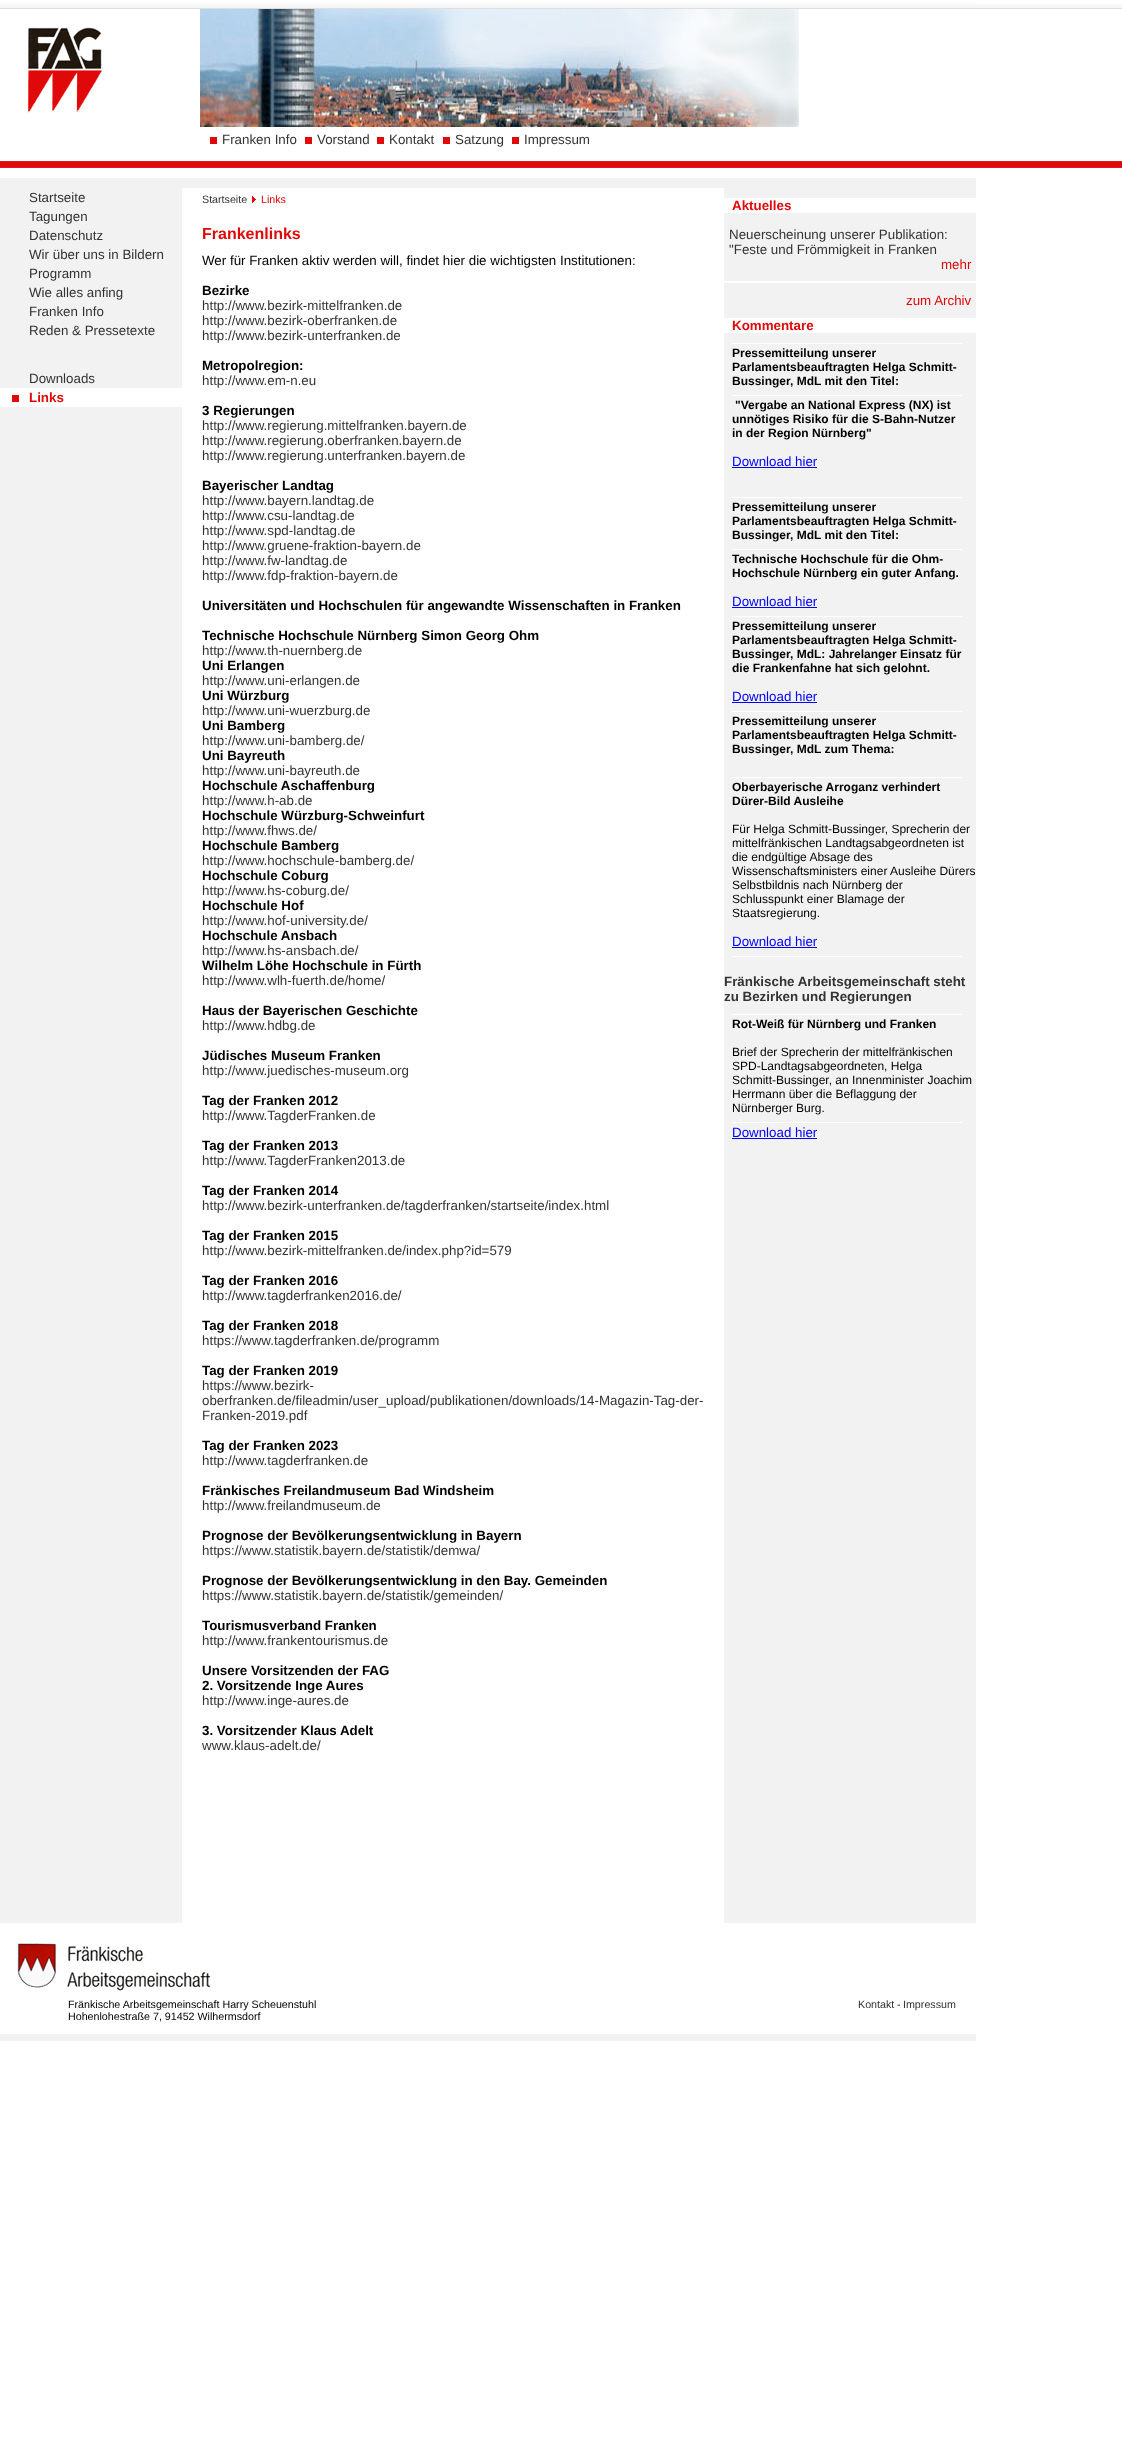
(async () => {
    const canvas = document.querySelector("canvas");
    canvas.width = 1122;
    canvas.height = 2450;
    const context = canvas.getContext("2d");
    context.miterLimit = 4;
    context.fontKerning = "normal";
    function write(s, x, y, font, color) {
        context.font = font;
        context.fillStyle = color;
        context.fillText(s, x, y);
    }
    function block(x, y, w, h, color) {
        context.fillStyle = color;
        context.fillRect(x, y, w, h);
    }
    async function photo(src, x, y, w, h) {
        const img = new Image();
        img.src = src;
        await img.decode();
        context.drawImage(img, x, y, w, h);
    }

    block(0, 0, 1122, 2450, "rgb(255, 255, 255)");
    await photo("media/1.png", 976, 4, 146, 164);
    await photo("media/2.png", 0, 188, 976, 1735);
    await photo("media/3.png", 0, 0, 976, 178);
    await photo("media/4.png", 28, 27, 79, 89);
    await photo("media/5.png", 200, 9, 599, 118);
    await photo("media/6.png", 210, 137, 7, 7);
    write("Franken Info", 222, 144, "13.35px Liberation Sans", "rgb(51, 51, 51)");
    await photo("media/6.png", 305, 137, 7, 7);
    write("Vorstand", 317, 144, "13.35px Liberation Sans", "rgb(51, 51, 51)");
    await photo("media/6.png", 377, 137, 7, 7);
    write("Kontakt", 389, 144, "13.35px Liberation Sans", "rgb(51, 51, 51)");
    await photo("media/6.png", 443, 137, 7, 7);
    write("Satzung", 455, 144, "13.35px Liberation Sans", "rgb(51, 51, 51)");
    await photo("media/6.png", 512, 137, 7, 7);
    write("Impressum", 524, 144, "13.35px Liberation Sans", "rgb(51, 51, 51)");
    block(0, 178, 976, 10, "rgb(242, 242, 242)");
    write("Startseite", 29, 202, "13.35px Liberation Sans", "rgb(51, 51, 51)");
    write("Tagungen", 29, 221, "13.35px Liberation Sans", "rgb(51, 51, 51)");
    write("Datenschutz", 29, 240, "13.35px Liberation Sans", "rgb(51, 51, 51)");
    write("Wir über uns in Bildern", 29, 259, "13.35px Liberation Sans", "rgb(51, 51, 51)");
    write("Programm", 29, 278, "13.35px Liberation Sans", "rgb(51, 51, 51)");
    write("Wie alles anfing", 29, 297, "13.35px Liberation Sans", "rgb(51, 51, 51)");
    write("Franken Info", 29, 316, "13.35px Liberation Sans", "rgb(51, 51, 51)");
    write("Reden & Pressetexte", 29, 335, "13.35px Liberation Sans", "rgb(51, 51, 51)");
    write("Downloads", 29, 383, "13.35px Liberation Sans", "rgb(51, 51, 51)");
    await photo("media/7.png", 0, 388, 182, 19);
    write("Links", 29, 402, "bold 13.35px Liberation Sans", "rgb(224, 8, 9)");
    write("Startseite", 202, 203, "10.7px Liberation Sans", "rgb(51, 51, 51)");
    await photo("media/8.png", 252, 196, 4, 7);
    write("Links", 261, 203, "10.7px Liberation Sans", "rgb(224, 8, 9)");
    write("Frankenlinks", 202, 239, "bold 16px Liberation Sans", "rgb(224, 8, 9)");
    write("Wer für Franken aktiv werden will, findet hier die wichtigsten Institutionen:", 202, 265, "13.35px Liberation Sans", "rgb(0, 0, 0)");
    write("Bezirke", 202, 295, "bold 13.35px Liberation Sans", "rgb(0, 0, 0)");
    write("http://www.bezirk-mittelfranken.de", 202, 310, "13.35px Liberation Sans", "rgb(51, 51, 51)");
    write("http://www.bezirk-oberfranken.de", 202, 325, "13.35px Liberation Sans", "rgb(51, 51, 51)");
    write("http://www.bezirk-unterfranken.de", 202, 340, "13.35px Liberation Sans", "rgb(51, 51, 51)");
    write("Metropolregion:", 202, 370, "bold 13.35px Liberation Sans", "rgb(0, 0, 0)");
    write("http://www.em-n.eu", 202, 385, "13.35px Liberation Sans", "rgb(51, 51, 51)");
    write("3 Regierungen", 202, 415, "bold 13.35px Liberation Sans", "rgb(0, 0, 0)");
    write("http://www.regierung.mittelfranken.bayern.de", 202, 430, "13.35px Liberation Sans", "rgb(51, 51, 51)");
    write("http://www.regierung.oberfranken.bayern.de", 202, 445, "13.35px Liberation Sans", "rgb(51, 51, 51)");
    write("http://www.regierung.unterfranken.bayern.de", 202, 460, "13.35px Liberation Sans", "rgb(51, 51, 51)");
    write("Bayerischer Landtag", 202, 490, "bold 13.35px Liberation Sans", "rgb(0, 0, 0)");
    write("http://www.bayern.landtag.de", 202, 505, "13.35px Liberation Sans", "rgb(51, 51, 51)");
    write("http://www.csu-landtag.de", 202, 520, "13.35px Liberation Sans", "rgb(51, 51, 51)");
    write("http://www.spd-landtag.de", 202, 535, "13.35px Liberation Sans", "rgb(51, 51, 51)");
    write("http://www.gruene-fraktion-bayern.de", 202, 550, "13.35px Liberation Sans", "rgb(51, 51, 51)");
    write("http://www.fw-landtag.de", 202, 565, "13.35px Liberation Sans", "rgb(51, 51, 51)");
    write("http://www.fdp-fraktion-bayern.de", 202, 580, "13.35px Liberation Sans", "rgb(51, 51, 51)");
    write("Universitäten und Hochschulen für angewandte Wissenschaften in Franken", 202, 610, "bold 13.35px Liberation Sans", "rgb(0, 0, 0)");
    write("Technische Hochschule Nürnberg Simon Georg Ohm", 202, 640, "bold 13.35px Liberation Sans", "rgb(0, 0, 0)");
    write("http://www.th-nuernberg.de", 202, 655, "13.35px Liberation Sans", "rgb(51, 51, 51)");
    write("Uni Erlangen", 202, 670, "bold 13.35px Liberation Sans", "rgb(0, 0, 0)");
    write("http://www.uni-erlangen.de", 202, 685, "13.35px Liberation Sans", "rgb(51, 51, 51)");
    write("Uni Würzburg", 202, 700, "bold 13.35px Liberation Sans", "rgb(0, 0, 0)");
    write("http://www.uni-wuerzburg.de", 202, 715, "13.35px Liberation Sans", "rgb(51, 51, 51)");
    write("Uni Bamberg", 202, 730, "bold 13.35px Liberation Sans", "rgb(0, 0, 0)");
    write("http://www.uni-bamberg.de/", 202, 745, "13.35px Liberation Sans", "rgb(51, 51, 51)");
    write("Uni Bayreuth", 202, 760, "bold 13.35px Liberation Sans", "rgb(0, 0, 0)");
    write("http://www.uni-bayreuth.de", 202, 775, "13.35px Liberation Sans", "rgb(51, 51, 51)");
    write("Hochschule Aschaffenburg", 202, 790, "bold 13.35px Liberation Sans", "rgb(0, 0, 0)");
    write("http://www.h-ab.de", 202, 805, "13.35px Liberation Sans", "rgb(51, 51, 51)");
    write("Hochschule Würzburg-Schweinfurt", 202, 820, "bold 13.35px Liberation Sans", "rgb(0, 0, 0)");
    write("http://www.fhws.de/", 202, 835, "13.35px Liberation Sans", "rgb(51, 51, 51)");
    write("Hochschule Bamberg", 202, 850, "bold 13.35px Liberation Sans", "rgb(0, 0, 0)");
    write("http://www.hochschule-bamberg.de/", 202, 865, "13.35px Liberation Sans", "rgb(51, 51, 51)");
    write("Hochschule Coburg", 202, 880, "bold 13.35px Liberation Sans", "rgb(0, 0, 0)");
    write("http://www.hs-coburg.de/", 202, 895, "13.35px Liberation Sans", "rgb(51, 51, 51)");
    write("Hochschule Hof", 202, 910, "bold 13.35px Liberation Sans", "rgb(0, 0, 0)");
    write("http://www.hof-university.de/", 202, 925, "13.35px Liberation Sans", "rgb(51, 51, 51)");
    write("Hochschule Ansbach", 202, 940, "bold 13.35px Liberation Sans", "rgb(0, 0, 0)");
    write("http://www.hs-ansbach.de/", 202, 955, "13.35px Liberation Sans", "rgb(51, 51, 51)");
    write("Wilhelm Löhe Hochschule in Fürth", 202, 970, "bold 13.35px Liberation Sans", "rgb(0, 0, 0)");
    write("http://www.wlh-fuerth.de/home/", 202, 985, "13.35px Liberation Sans", "rgb(51, 51, 51)");
    write("Haus der Bayerischen Geschichte", 202, 1015, "bold 13.35px Liberation Sans", "rgb(0, 0, 0)");
    write("http://www.hdbg.de", 202, 1030, "13.35px Liberation Sans", "rgb(51, 51, 51)");
    write("Jüdisches Museum Franken", 202, 1060, "bold 13.35px Liberation Sans", "rgb(0, 0, 0)");
    write("http://www.juedisches-museum.org", 202, 1075, "13.35px Liberation Sans", "rgb(51, 51, 51)");
    write("Tag der Franken 2012", 202, 1105, "bold 13.35px Liberation Sans", "rgb(0, 0, 0)");
    write("http://www.TagderFranken.de", 202, 1120, "13.35px Liberation Sans", "rgb(51, 51, 51)");
    write("Tag der Franken 2013", 202, 1150, "bold 13.35px Liberation Sans", "rgb(0, 0, 0)");
    write("http://www.TagderFranken2013.de", 202, 1165, "13.35px Liberation Sans", "rgb(51, 51, 51)");
    write("Tag der Franken 2014", 202, 1195, "bold 13.35px Liberation Sans", "rgb(0, 0, 0)");
    write("http://www.bezirk-unterfranken.de/tagderfranken/startseite/index.html", 202, 1210, "13.35px Liberation Sans", "rgb(51, 51, 51)");
    write("Tag der Franken 2015", 202, 1240, "bold 13.35px Liberation Sans", "rgb(0, 0, 0)");
    write("http://www.bezirk-mittelfranken.de/index.php?id=579", 202, 1255, "13.35px Liberation Sans", "rgb(51, 51, 51)");
    write("Tag der Franken 2016", 202, 1285, "bold 13.35px Liberation Sans", "rgb(0, 0, 0)");
    write("http://www.tagderfranken2016.de/", 202, 1300, "13.35px Liberation Sans", "rgb(51, 51, 51)");
    write("Tag der Franken 2018", 202, 1330, "bold 13.35px Liberation Sans", "rgb(0, 0, 0)");
    write("https://www.tagderfranken.de/programm", 202, 1345, "13.35px Liberation Sans", "rgb(51, 51, 51)");
    write("Tag der Franken 2019", 202, 1375, "bold 13.35px Liberation Sans", "rgb(0, 0, 0)");
    write("https://www.bezirk-", 202, 1390, "13.35px Liberation Sans", "rgb(51, 51, 51)");
    write("oberfranken.de/fileadmin/user_upload/publikationen/downloads/14-Magazin-Tag-der-", 202, 1405, "13.35px Liberation Sans", "rgb(51, 51, 51)");
    write("Franken-2019.pdf", 202, 1420, "13.35px Liberation Sans", "rgb(51, 51, 51)");
    write("Tag der Franken 2023", 202, 1450, "bold 13.35px Liberation Sans", "rgb(0, 0, 0)");
    write("http://www.tagderfranken.de", 202, 1465, "13.35px Liberation Sans", "rgb(51, 51, 51)");
    write("Fränkisches Freilandmuseum Bad Windsheim", 202, 1495, "bold 13.35px Liberation Sans", "rgb(0, 0, 0)");
    write("http://www.freilandmuseum.de", 202, 1510, "13.35px Liberation Sans", "rgb(51, 51, 51)");
    write("Prognose der Bevölkerungsentwicklung in Bayern", 202, 1540, "bold 13.35px Liberation Sans", "rgb(0, 0, 0)");
    write("https://www.statistik.bayern.de/statistik/demwa/", 202, 1555, "13.35px Liberation Sans", "rgb(51, 51, 51)");
    write("Prognose der Bevölkerungsentwicklung in den Bay. Gemeinden", 202, 1585, "bold 13.35px Liberation Sans", "rgb(0, 0, 0)");
    write("https://www.statistik.bayern.de/statistik/gemeinden/", 202, 1600, "13.35px Liberation Sans", "rgb(51, 51, 51)");
    write("Tourismusverband Franken", 202, 1630, "bold 13.35px Liberation Sans", "rgb(0, 0, 0)");
    write("http://www.frankentourismus.de", 202, 1645, "13.35px Liberation Sans", "rgb(51, 51, 51)");
    write("Unsere Vorsitzenden der FAG", 202, 1675, "bold 13.35px Liberation Sans", "rgb(0, 0, 0)");
    write("2. Vorsitzende Inge Aures", 202, 1690, "bold 13.35px Liberation Sans", "rgb(0, 0, 0)");
    write("http://www.inge-aures.de", 202, 1705, "13.35px Liberation Sans", "rgb(51, 51, 51)");
    write("3. Vorsitzender Klaus Adelt", 202, 1735, "bold 13.35px Liberation Sans", "rgb(0, 0, 0)");
    write("www.klaus-adelt.de/", 202, 1750, "13.35px Liberation Sans", "rgb(51, 51, 51)");
    block(724, 198, 252, 15, "rgb(255, 255, 255)");
    write("Aktuelles", 732, 210, "bold 13.35px Liberation Sans", "rgb(224, 8, 9)");
    block(724, 281, 252, 2, "rgb(255, 255, 255)");
    write("Neuerscheinung unserer Publikation:", 729, 239, "13.35px Liberation Sans", "rgb(51, 51, 51)");
    write("\"Feste und Frömmigkeit in Franken", 729, 254, "13.35px Liberation Sans", "rgb(51, 51, 51)");
    write("mehr", 941, 269, "13.35px Liberation Sans", "rgb(224, 8, 9)");
    write("zum Archiv", 906, 305, "13.35px Liberation Sans", "rgb(224, 8, 9)");
    block(724, 318, 252, 15, "rgb(255, 255, 255)");
    write("Kommentare", 732, 330, "bold 13.35px Liberation Sans", "rgb(224, 8, 9)");
    block(732, 343, 230, 1, "rgb(255, 255, 255)");
    write("Pressemitteilung unserer", 732, 357, "bold 12px Liberation Sans", "rgb(0, 0, 0)");
    write("Parlamentsbeauftragten Helga Schmitt-", 732, 371, "bold 12px Liberation Sans", "rgb(0, 0, 0)");
    write("Bussinger, MdL mit den Titel:", 732, 385, "bold 12px Liberation Sans", "rgb(0, 0, 0)");
    block(732, 395, 230, 1, "rgb(255, 255, 255)");
    write("\"Vergabe an National Express (NX) ist", 735, 409, "bold 12px Liberation Sans", "rgb(0, 0, 0)");
    write("unnötiges Risiko für die S-Bahn-Nutzer", 732, 423, "bold 12px Liberation Sans", "rgb(0, 0, 0)");
    write("in der Region Nürnberg\"", 732, 437, "bold 12px Liberation Sans", "rgb(0, 0, 0)");
    write("Download hier", 732, 466, "13.35px Liberation Sans", "rgb(0, 0, 255)");
    block(732, 467, 85, 1, "rgb(0, 0, 255)");
    block(732, 497, 230, 1, "rgb(255, 255, 255)");
    write("Pressemitteilung unserer", 732, 511, "bold 12px Liberation Sans", "rgb(0, 0, 0)");
    write("Parlamentsbeauftragten Helga Schmitt-", 732, 525, "bold 12px Liberation Sans", "rgb(0, 0, 0)");
    write("Bussinger, MdL mit den Titel:", 732, 539, "bold 12px Liberation Sans", "rgb(0, 0, 0)");
    block(732, 549, 230, 1, "rgb(255, 255, 255)");
    write("Technische Hochschule für die Ohm-", 732, 563, "bold 12px Liberation Sans", "rgb(0, 0, 0)");
    write("Hochschule Nürnberg ein guter Anfang.", 732, 577, "bold 12px Liberation Sans", "rgb(0, 0, 0)");
    write("Download hier", 732, 606, "13.35px Liberation Sans", "rgb(0, 0, 255)");
    block(732, 607, 85, 1, "rgb(0, 0, 255)");
    block(732, 616, 230, 1, "rgb(255, 255, 255)");
    write("Pressemitteilung unserer", 732, 630, "bold 12px Liberation Sans", "rgb(0, 0, 0)");
    write("Parlamentsbeauftragten Helga Schmitt-", 732, 644, "bold 12px Liberation Sans", "rgb(0, 0, 0)");
    write("Bussinger, MdL: Jahrelanger Einsatz für", 732, 658, "bold 12px Liberation Sans", "rgb(0, 0, 0)");
    write("die Frankenfahne hat sich gelohnt.", 732, 672, "bold 12px Liberation Sans", "rgb(0, 0, 0)");
    write("Download hier", 732, 701, "13.35px Liberation Sans", "rgb(0, 0, 255)");
    block(732, 702, 85, 1, "rgb(0, 0, 255)");
    block(732, 711, 230, 1, "rgb(255, 255, 255)");
    write("Pressemitteilung unserer", 732, 725, "bold 12px Liberation Sans", "rgb(0, 0, 0)");
    write("Parlamentsbeauftragten Helga Schmitt-", 732, 739, "bold 12px Liberation Sans", "rgb(0, 0, 0)");
    write("Bussinger, MdL zum Thema:", 732, 753, "bold 12px Liberation Sans", "rgb(0, 0, 0)");
    block(732, 777, 230, 1, "rgb(255, 255, 255)");
    write("Oberbayerische Arroganz verhindert", 732, 791, "bold 12px Liberation Sans", "rgb(0, 0, 0)");
    write("Dürer-Bild Ausleihe", 732, 805, "bold 12px Liberation Sans", "rgb(0, 0, 0)");
    write("Für Helga Schmitt-Bussinger, Sprecherin der", 732, 833, "12px Liberation Sans", "rgb(0, 0, 0)");
    write("mittelfränkischen Landtagsabgeordneten ist", 732, 847, "12px Liberation Sans", "rgb(0, 0, 0)");
    write("die endgültige Absage des", 732, 861, "12px Liberation Sans", "rgb(0, 0, 0)");
    write("Wissenschaftsministers einer Ausleihe Dürers", 732, 875, "12px Liberation Sans", "rgb(0, 0, 0)");
    write("Selbstbildnis nach Nürnberg der", 732, 889, "12px Liberation Sans", "rgb(0, 0, 0)");
    write("Schlusspunkt einer Blamage der", 732, 903, "12px Liberation Sans", "rgb(0, 0, 0)");
    write("Staatsregierung.", 732, 917, "12px Liberation Sans", "rgb(0, 0, 0)");
    write("Download hier", 732, 946, "13.35px Liberation Sans", "rgb(0, 0, 255)");
    block(732, 947, 85, 1, "rgb(0, 0, 255)");
    block(732, 956, 230, 1, "rgb(255, 255, 255)");
    write("Fränkische Arbeitsgemeinschaft steht", 724, 986, "bold 13.35px Liberation Sans", "rgb(51, 51, 51)");
    write("zu Bezirken und Regierungen", 724, 1001, "bold 13.35px Liberation Sans", "rgb(51, 51, 51)");
    block(732, 1014, 230, 1, "rgb(255, 255, 255)");
    write("Rot-Weiß für Nürnberg und Franken", 732, 1028, "bold 12px Liberation Sans", "rgb(0, 0, 0)");
    write("Brief der Sprecherin der mittelfränkischen", 732, 1056, "12px Liberation Sans", "rgb(0, 0, 0)");
    write("SPD-Landtagsabgeordneten, Helga", 732, 1070, "12px Liberation Sans", "rgb(0, 0, 0)");
    write("Schmitt-Bussinger, an Innenminister Joachim", 732, 1084, "12px Liberation Sans", "rgb(0, 0, 0)");
    write("Herrmann über die Beflaggung der", 732, 1098, "12px Liberation Sans", "rgb(0, 0, 0)");
    write("Nürnberger Burg.", 732, 1112, "12px Liberation Sans", "rgb(0, 0, 0)");
    block(732, 1122, 230, 1, "rgb(255, 255, 255)");
    write("Download hier", 732, 1137, "13.35px Liberation Sans", "rgb(0, 0, 255)");
    block(732, 1138, 85, 1, "rgb(0, 0, 255)");
    await photo("media/9.png", 0, 1940, 976, 101);
    write("Fränkische Arbeitsgemeinschaft Harry Scheuenstuhl", 68, 2008, "10.7px Liberation Sans", "rgb(0, 0, 0)");
    write("Hohenlohestraße 7, 91452 Wilhermsdorf", 68, 2020, "10.7px Liberation Sans", "rgb(0, 0, 0)");
    write("Kontakt", 858, 2008, "10.7px Liberation Sans", "rgb(51, 51, 51)");
    write("-", 897, 2008, "10.7px Liberation Sans", "rgb(0, 0, 0)");
    write("Impressum", 903, 2008, "10.7px Liberation Sans", "rgb(51, 51, 51)");
})();
